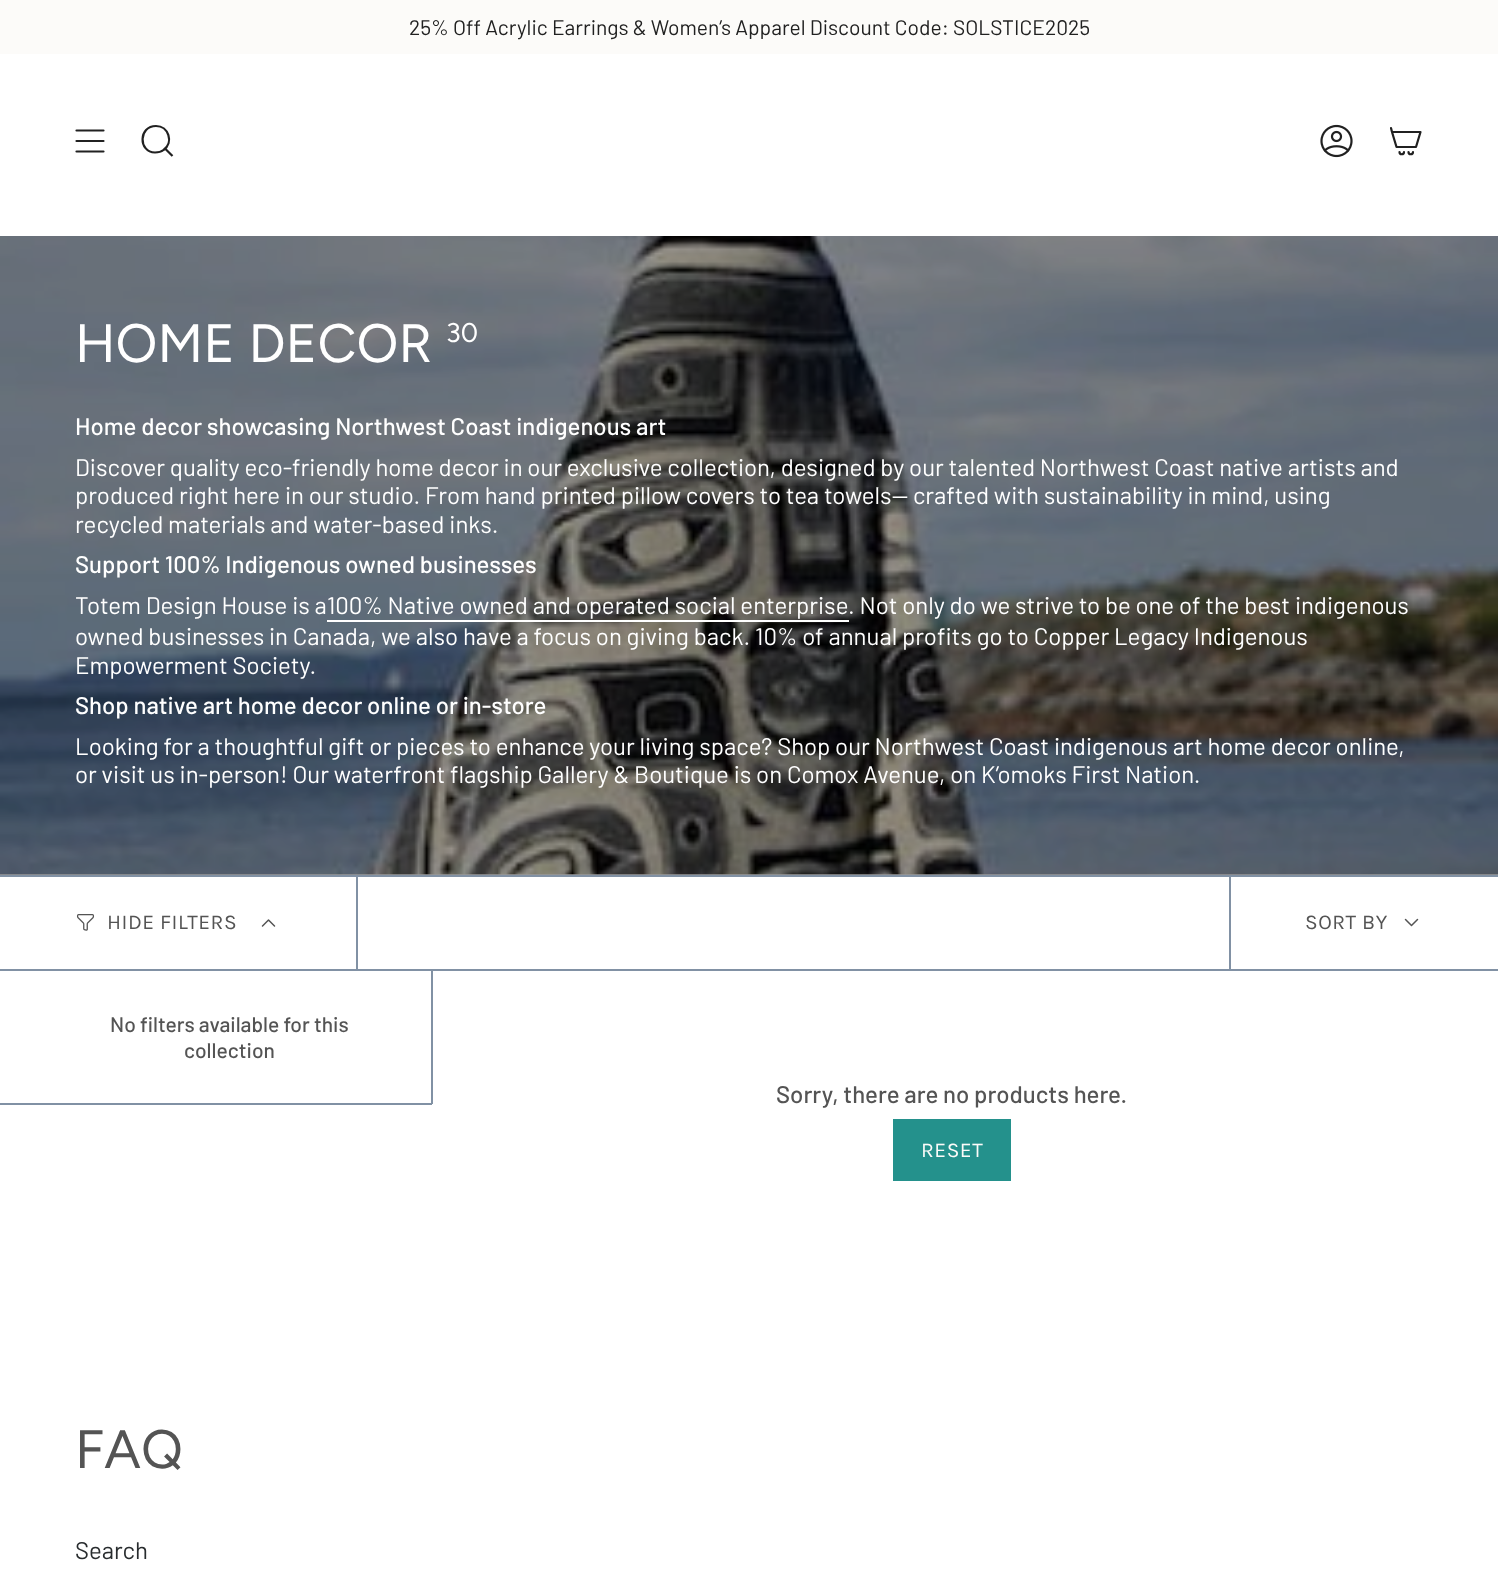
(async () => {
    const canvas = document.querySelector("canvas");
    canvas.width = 1498;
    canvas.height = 1576;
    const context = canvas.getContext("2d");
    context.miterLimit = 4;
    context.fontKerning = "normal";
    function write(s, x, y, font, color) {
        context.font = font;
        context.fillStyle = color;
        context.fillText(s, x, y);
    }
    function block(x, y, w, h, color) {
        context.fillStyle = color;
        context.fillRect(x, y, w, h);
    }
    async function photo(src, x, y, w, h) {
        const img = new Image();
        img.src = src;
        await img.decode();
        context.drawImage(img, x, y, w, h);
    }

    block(0, 0, 1498, 1576, "rgb(255, 255, 255)");
    block(0, 874, 1498, 1, "rgb(153, 153, 153)");
    block(0, 0, 1498, 54, "rgb(252, 251, 249)");
    write("25% Off Acrylic Earrings & Women’s Apparel Discount Code: SOLSTICE2025", 409, 35, "21px Barlow", "rgb(33, 33, 33)");
    context.beginPath();
    context.moveTo(76.5, 130.5);
    context.lineTo(103.5, 130.5);
    context.moveTo(76.5, 141);
    context.lineTo(103.5, 141);
    context.moveTo(76.5, 151.5);
    context.lineTo(103.5, 151.5);
    context.strokeStyle = "rgb(33, 33, 33)";
    context.lineWidth = 2.2;
    context.lineCap = "round";
    context.lineJoin = "round";
    context.stroke();
    context.beginPath();
    context.moveTo(156, 126);
    context.bezierCurveTo(168.5, 126, 174, 142.5, 163.5, 150);
    context.bezierCurveTo(161, 152, 158, 152.5, 155, 152.5);
    context.bezierCurveTo(138, 152, 138.5, 126, 156, 126);
    context.closePath();
    context.moveTo(165, 148.5);
    context.lineTo(172.5, 156);
    context.lineCap = "butt";
    context.lineJoin = "miter";
    context.stroke();
    await photo("media/1.png", 1320, 124, 33, 34);
    context.beginPath();
    context.moveTo(1392, 132);
    context.lineTo(1420.5, 132);
    context.lineTo(1416, 147);
    context.lineTo(1396.5, 147);
    context.closePath();
    context.moveTo(1392, 132);
    context.lineTo(1391, 128);
    context.moveTo(1404, 152);
    context.bezierCurveTo(1404, 155, 1399.5, 155, 1399.5, 152);
    context.moveTo(1413, 152);
    context.bezierCurveTo(1413, 155, 1408.5, 155, 1408.5, 152);
    context.lineCap = "round";
    context.lineJoin = "round";
    context.stroke();
    await photo("media/2.png", 0, 236, 1498, 639);
    write("HOME DECOR", 75, 362, "54px Figtree", "rgb(255, 255, 255)");
    write("30", 446, 342, "27px Figtree", "rgb(255, 255, 255)");
    write("Home decor showcasing Northwest Coast indigenous art", 75, 435, "500 24px Barlow", "rgb(255, 255, 255)");
    write("Discover quality eco-friendly home decor in our exclusive collection, designed by our talented Northwest Coast native artists and", 75, 476, "24px Barlow", "rgb(255, 255, 255)");
    write("produced right here in our studio. From hand printed pillow covers to tea towels— crafted with sustainability in mind, using", 75, 504, "24px Barlow", "rgb(255, 255, 255)");
    write("recycled materials and water-based inks.", 75, 533, "24px Barlow", "rgb(255, 255, 255)");
    write("Support 100% Indigenous owned businesses", 75, 573, "500 24px Barlow", "rgb(255, 255, 255)");
    write("Totem Design House is a100% Native owned and operated social enterprise", 75, 614, "24px Barlow", "rgb(255, 255, 255)");
    write(". Not only do we strive to be one of the best indigenous", 848, 614, "24px Barlow", "rgb(255, 255, 255)");
    block(327, 620, 522, 2, "rgb(255, 255, 255)");
    write("owned businesses in Canada, we also have a focus on giving back. 10% of annual profits go to Copper Legacy Indigenous", 75, 645, "24px Barlow", "rgb(255, 255, 255)");
    write("Empowerment Society.", 75, 674, "24px Barlow", "rgb(255, 255, 255)");
    write("Shop native art home decor online or in-store", 75, 714, "500 24px Barlow", "rgb(255, 255, 255)");
    write("Looking for a thoughtful gift or pieces to enhance your living space? Shop our Northwest Coast indigenous art home decor online,", 75, 755, "24px Barlow", "rgb(255, 255, 255)");
    write("or visit us in-person! Our waterfront flagship Gallery & Boutique is on Comox Avenue, on K’omoks First Nation.", 75, 783, "24px Barlow", "rgb(255, 255, 255)");
    block(0, 875, 1498, 2, "rgb(129, 145, 164)");
    block(0, 969, 1498, 2, "rgb(129, 145, 164)");
    block(356, 876, 2, 93, "rgb(129, 145, 164)");
    await photo("media/3.png", 76, 914, 19, 17);
    context.letterSpacing = "0.5px";
    write("HIDE FILTERS", 107, 929, "21px Karla", "rgb(84, 84, 84)");
    context.beginPath();
    context.moveTo(262.5, 926);
    context.lineTo(268.5, 920);
    context.lineTo(274.5, 926);
    context.strokeStyle = "rgb(84, 84, 84)";
    context.lineWidth = 1.5;
    context.stroke();
    block(1229, 876, 2, 93, "rgb(129, 145, 164)");
    write("SORT BY", 1305, 929, "21px Karla", "rgb(84, 84, 84)");
    context.beginPath();
    context.moveTo(1405.5, 919.5);
    context.lineTo(1411.5, 925.5);
    context.lineTo(1417.5, 919.5);
    context.stroke();
    block(431, 971, 2, 133, "rgb(129, 145, 164)");
    block(0, 1103, 432, 2, "rgb(129, 145, 164)");
    context.letterSpacing = "0px";
    write("No filters available for this", 110, 1032, "500 21px Barlow", "rgb(84, 84, 84)");
    write("collection", 184, 1058, "500 21px Barlow", "rgb(84, 84, 84)");
    write("Sorry, there are no products here.", 776, 1103, "500 24px Barlow", "rgb(84, 84, 84)");
    block(893, 1119, 118, 62, "rgb(36, 145, 140)");
    context.letterSpacing = "0.5px";
    write("RESET", 921, 1157, "21px Karla", "rgb(252, 251, 249)");
    context.letterSpacing = "0px";
    write("FAQ", 75, 1468, "54px Figtree", "rgb(84, 84, 84)");
    write("Search", 75, 1559, "24px Barlow", "rgb(40, 44, 46)");
})();
